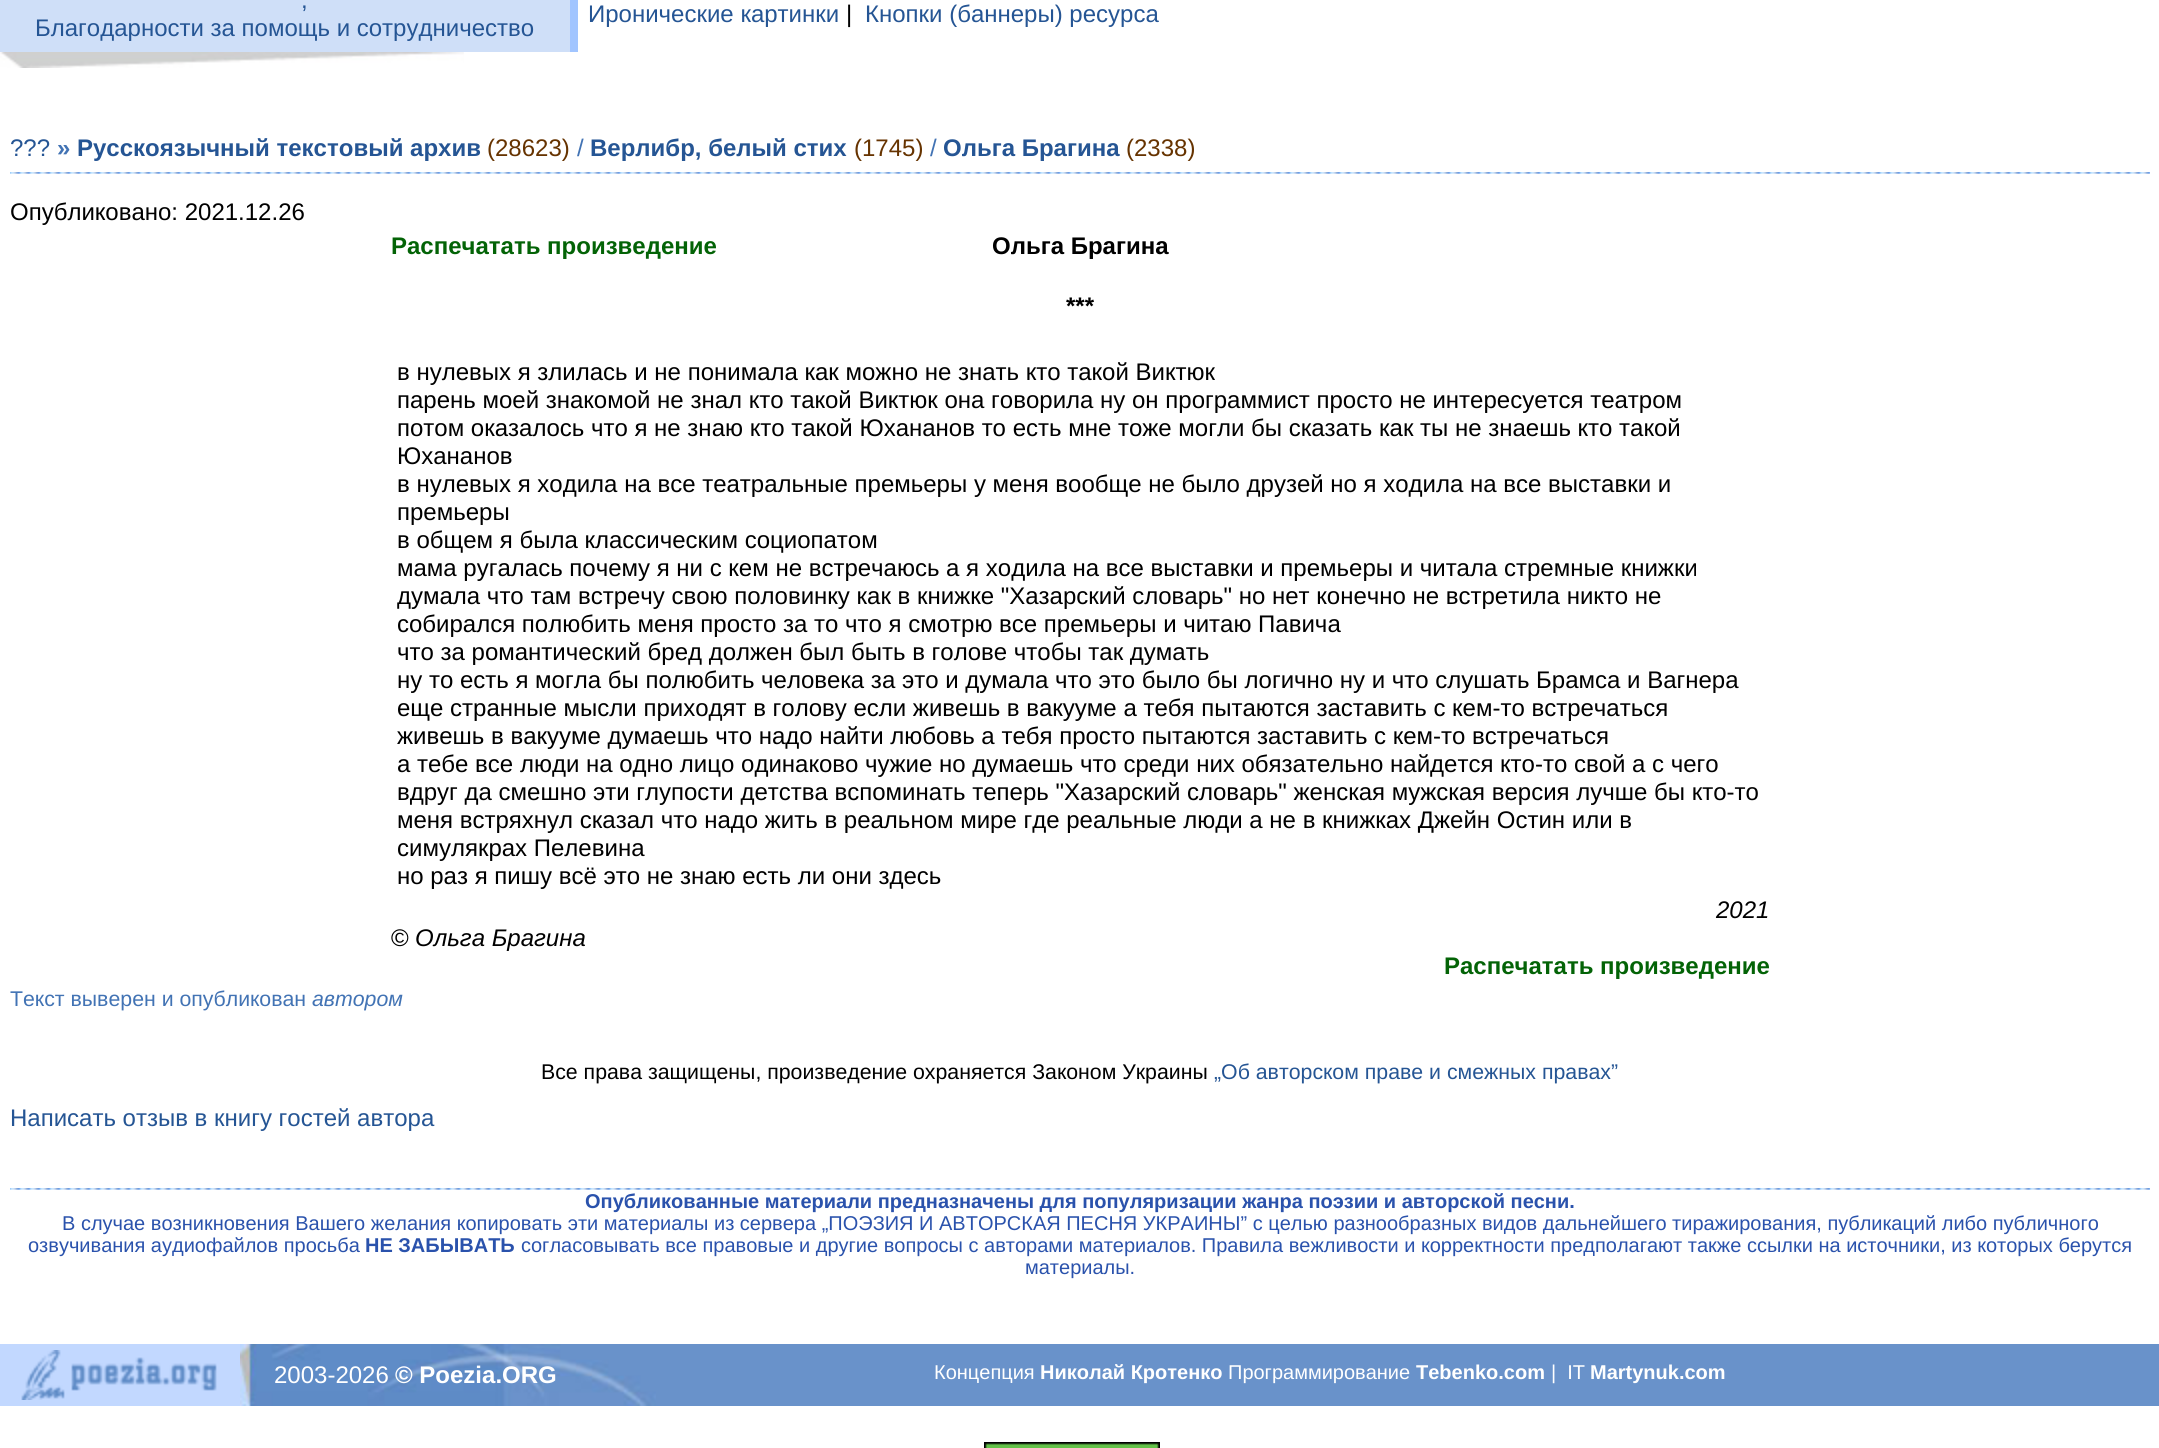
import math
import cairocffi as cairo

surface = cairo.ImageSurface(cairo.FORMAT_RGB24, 2159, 1448)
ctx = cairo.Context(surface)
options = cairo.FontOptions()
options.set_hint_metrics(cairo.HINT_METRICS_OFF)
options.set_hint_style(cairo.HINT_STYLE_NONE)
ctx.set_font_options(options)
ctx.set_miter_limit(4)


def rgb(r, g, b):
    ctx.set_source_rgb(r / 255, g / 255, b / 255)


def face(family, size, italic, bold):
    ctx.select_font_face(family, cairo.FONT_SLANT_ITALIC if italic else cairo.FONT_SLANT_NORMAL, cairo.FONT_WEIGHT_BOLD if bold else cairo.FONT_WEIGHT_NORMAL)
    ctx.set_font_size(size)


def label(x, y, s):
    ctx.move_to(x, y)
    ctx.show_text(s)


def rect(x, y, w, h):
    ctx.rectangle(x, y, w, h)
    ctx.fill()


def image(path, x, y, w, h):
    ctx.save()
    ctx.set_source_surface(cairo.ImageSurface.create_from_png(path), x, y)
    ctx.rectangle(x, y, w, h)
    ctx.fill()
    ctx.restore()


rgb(255, 255, 255)
ctx.paint()
rgb(207, 223, 248)
rect(0, 0, 570, 52)
face('Liberation Sans', 24, 0, 0)
rgb(37, 85, 148)
label(301, 8, ',')
label(35, 36, 'Благодарности за помощь и сотрудничество')
rgb(161, 197, 255)
rect(570, 0, 8, 52)
rgb(37, 85, 148)
label(588, 22, 'Иронические картинки')
rgb(0, 0, 0)
label(846, 22, '|')
rgb(37, 85, 148)
label(865, 22, 'Кнопки (баннеры) ресурса')
image('image0.png', 0, 52, 464, 16)
label(10, 156, '???')
face('Liberation Sans', 24, 0, 1)
rgb(66, 115, 180)
label(57, 156, '»')
rgb(37, 85, 148)
label(77, 156, 'Русскоязычный текстовый архив')
face('Liberation Sans', 24, 0, 0)
rgb(102, 51, 0)
label(487, 156, '(28623)')
rgb(66, 115, 180)
label(577, 156, '/')
face('Liberation Sans', 24, 0, 1)
rgb(37, 85, 148)
label(590, 156, 'Верлибр, белый стих')
face('Liberation Sans', 24, 0, 0)
rgb(102, 51, 0)
label(854, 156, '(1745)')
rgb(66, 115, 180)
label(930, 156, '/')
face('Liberation Sans', 24, 0, 1)
rgb(37, 85, 148)
label(943, 156, 'Ольга Брагина')
face('Liberation Sans', 24, 0, 0)
rgb(102, 51, 0)
label(1126, 156, '(2338)')
image('image1.png', 10, 172, 2140, 2)
rgb(0, 0, 0)
label(10, 220, 'Опубликовано: 2021.12.26')
face('Liberation Sans', 24, 0, 1)
rgb(3, 99, 6)
label(391, 254, 'Распечатать произведение')
rgb(0, 0, 0)
label(992, 254, 'Ольга Брагина')
label(1066, 314, '***')
face('Liberation Sans', 24, 0, 0)
label(397, 380, 'в нулевых я злилась и не понимала как можно не знать кто такой Виктюк')
label(397, 408, 'парень моей знакомой не знал кто такой Виктюк она говорила ну он программист просто не интересуется театром')
label(397, 436, 'потом оказалось что я не знаю кто такой Юхананов то есть мне тоже могли бы сказать как ты не знаешь кто такой')
label(397, 464, 'Юхананов')
label(397, 492, 'в нулевых я ходила на все театральные премьеры у меня вообще не было друзей но я ходила на все выставки и')
label(397, 520, 'премьеры')
label(397, 548, 'в общем я была классическим социопатом')
label(397, 576, 'мама ругалась почему я ни с кем не встречаюсь а я ходила на все выставки и премьеры и читала стремные книжки')
label(397, 604, 'думала что там встречу свою половинку как в книжке "Хазарский словарь" но нет конечно не встретила никто не')
label(397, 632, 'собирался полюбить меня просто за то что я смотрю все премьеры и читаю Павича')
label(397, 660, 'что за романтический бред должен был быть в голове чтобы так думать')
label(397, 688, 'ну то есть я могла бы полюбить человека за это и думала что это было бы логично ну и что слушать Брамса и Вагнера')
label(397, 716, 'еще странные мысли приходят в голову если живешь в вакууме а тебя пытаются заставить с кем-то встречаться')
label(397, 744, 'живешь в вакууме думаешь что надо найти любовь а тебя просто пытаются заставить с кем-то встречаться')
label(397, 772, 'а тебе все люди на одно лицо одинаково чужие но думаешь что среди них обязательно найдется кто-то свой а с чего')
label(397, 800, 'вдруг да смешно эти глупости детства вспоминать теперь "Хазарский словарь" женская мужская версия лучше бы кто-то')
label(397, 828, 'меня встряхнул сказал что надо жить в реальном мире где реальные люди а не в книжках Джейн Остин или в')
label(397, 856, 'симулякрах Пелевина')
label(397, 884, 'но раз я пишу всё это не знаю есть ли они здесь')
face('Liberation Sans', 24, 1, 0)
label(1716, 918, '2021')
face('Liberation Sans', 24, 0, 0)
label(391, 946, '©')
face('Liberation Sans', 24, 1, 0)
label(415, 946, 'Ольга Брагина')
face('Liberation Sans', 24, 0, 1)
rgb(3, 99, 6)
label(1444, 974, 'Распечатать произведение')
face('Liberation Sans', 21.3, 0, 0)
rgb(66, 115, 180)
label(10, 1006, 'Текст выверен и опубликован')
face('Liberation Sans', 21.3, 1, 0)
label(312, 1006, 'автором')
face('Liberation Sans', 21.3, 0, 0)
rgb(0, 0, 0)
label(541, 1079, 'Все права защищены, произведение охраняется Законом Украины')
rgb(37, 85, 148)
label(1214, 1079, '„Об авторском праве и смежных правах”')
face('Liberation Sans', 24, 0, 0)
label(10, 1126, 'Написать отзыв в книгу гостей автора')
image('image1.png', 10, 1188, 2140, 2)
face('Liberation Sans', 20, 0, 1)
rgb(42, 82, 172)
label(585, 1208, 'Опубликованные материали предназначены для популяризации жанра поэзии и авторской песни.')
face('Liberation Sans', 20, 0, 0)
label(62, 1230, 'В случае возникновения Вашего желания копировать эти материалы из сервера „ПОЭЗИЯ И АВТОРСКАЯ ПЕСНЯ УКРАИНЫ” с целью разнообразных видов дальнейшего тиражирования, публикаций либо публичного')
label(28, 1252, 'озвучивания аудиофайлов просьба')
face('Liberation Sans', 20, 0, 1)
label(365, 1252, 'НЕ ЗАБЫВАТЬ')
face('Liberation Sans', 20, 0, 0)
label(521, 1252, 'согласовывать все правовые и другие вопросы с авторами материалов. Правила вежливости и корректности предполагают также ссылки на источники, из которых берутся')
label(1025, 1274, 'материалы.')
rgb(194, 216, 255)
rect(0, 1344, 240, 62)
image('image2.png', 21, 1350, 196, 50)
rgb(105, 146, 202)
rect(656, 1344, 1503, 62)
image('image3.png', 240, 1344, 416, 62)
face('Liberation Sans', 24, 0, 0)
rgb(255, 255, 255)
label(274, 1383, '2003-2026')
face('Liberation Sans', 24, 0, 1)
label(395, 1383, '© Poezia.ORG')
face('Liberation Sans', 20, 0, 0)
label(934, 1379, 'Концепция')
face('Liberation Sans', 20, 0, 1)
label(1040, 1379, 'Николай Кротенко')
face('Liberation Sans', 20, 0, 0)
label(1228, 1379, 'Программирование')
face('Liberation Sans', 20, 0, 1)
label(1416, 1379, 'Tebenko.com')
face('Liberation Sans', 20, 0, 0)
label(1551, 1379, '|  IT')
face('Liberation Sans', 20, 0, 1)
label(1590, 1379, 'Martynuk.com')
image('image4.png', 984, 1442, 176, 6)
surface.write_to_png('render.png')
